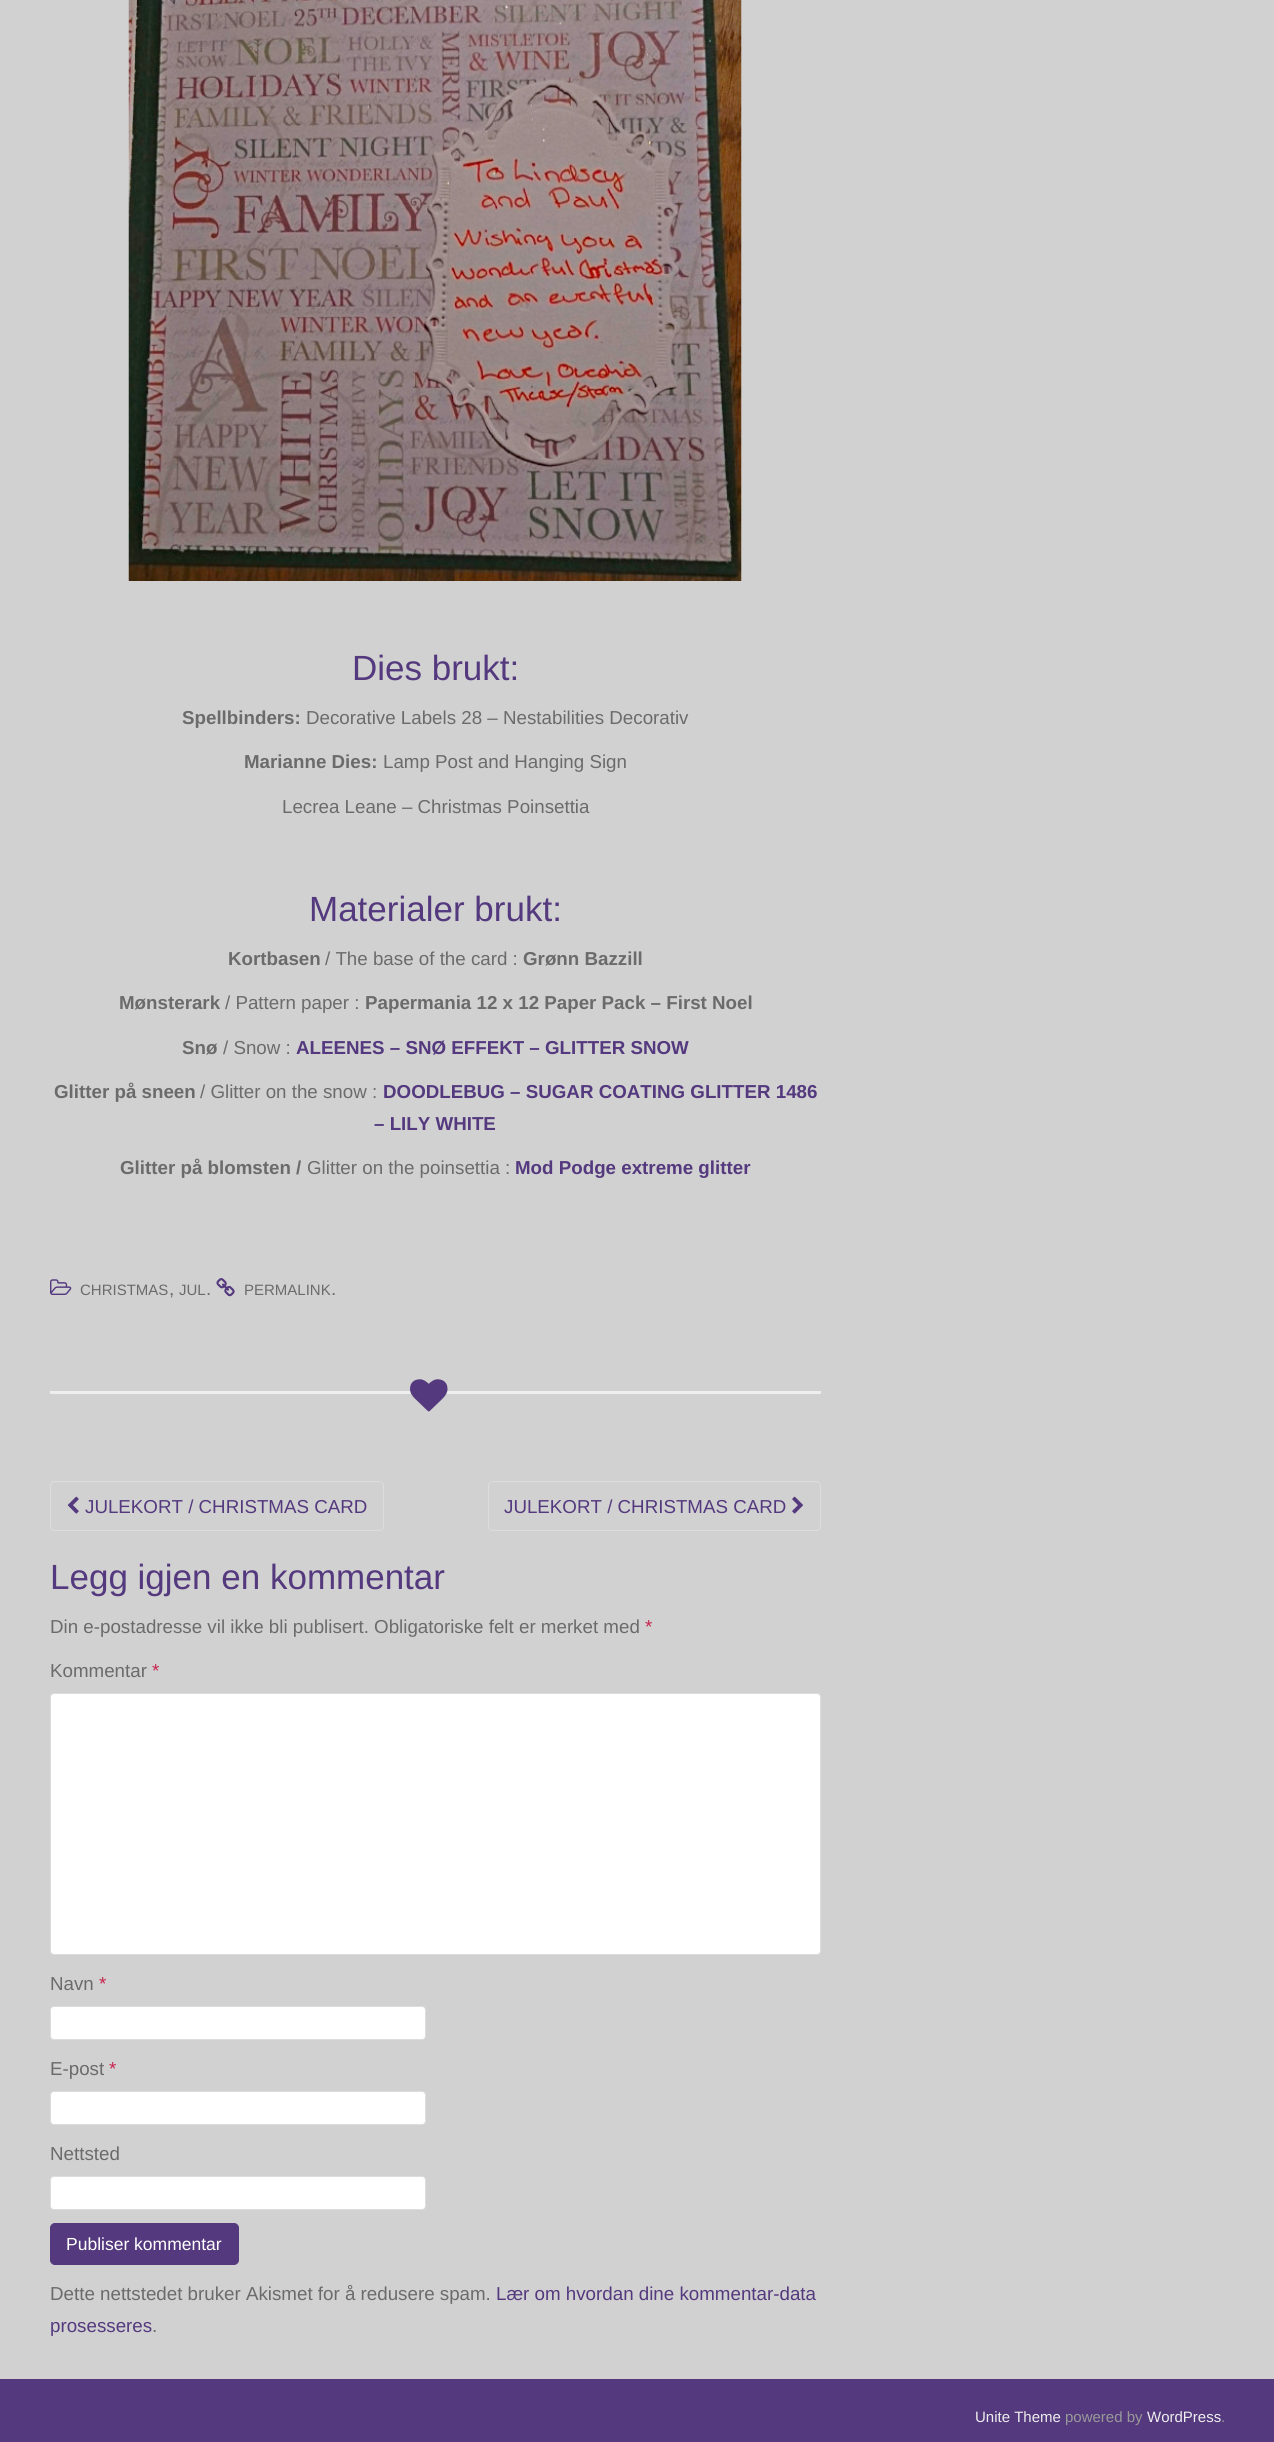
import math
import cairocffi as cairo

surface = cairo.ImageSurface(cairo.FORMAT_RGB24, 1274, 2442)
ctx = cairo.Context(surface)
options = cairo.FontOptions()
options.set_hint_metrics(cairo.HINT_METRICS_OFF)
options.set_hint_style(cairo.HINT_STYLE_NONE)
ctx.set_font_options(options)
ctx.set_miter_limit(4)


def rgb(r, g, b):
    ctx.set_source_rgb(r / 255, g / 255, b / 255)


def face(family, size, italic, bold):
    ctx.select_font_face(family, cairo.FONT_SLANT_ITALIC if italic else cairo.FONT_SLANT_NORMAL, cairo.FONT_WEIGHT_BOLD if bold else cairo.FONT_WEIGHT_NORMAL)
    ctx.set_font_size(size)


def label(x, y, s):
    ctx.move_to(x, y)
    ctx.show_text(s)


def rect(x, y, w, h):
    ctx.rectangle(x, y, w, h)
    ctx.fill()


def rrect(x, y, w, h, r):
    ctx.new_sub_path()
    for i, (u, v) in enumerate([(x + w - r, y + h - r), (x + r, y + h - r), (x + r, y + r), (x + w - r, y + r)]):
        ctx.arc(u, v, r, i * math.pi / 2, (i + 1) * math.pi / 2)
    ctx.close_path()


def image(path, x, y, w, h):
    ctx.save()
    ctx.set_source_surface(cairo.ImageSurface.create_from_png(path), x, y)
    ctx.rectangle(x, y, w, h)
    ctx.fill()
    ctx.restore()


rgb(209, 209, 209)
ctx.paint()
image('image0.png', 128, 0, 614, 581)
face('Liberation Sans', 35, 0, 0)
rgb(84, 57, 126)
label(352, 680, 'Dies brukt:')
face('Liberation Sans', 18.75, 0, 1)
rgb(107, 107, 107)
label(182, 724, 'Spellbinders:')
face('Liberation Sans', 18.75, 0, 0)
label(306, 724, 'Decorative Labels 28 – Nestabilities Decorativ')
face('Liberation Sans', 18.75, 0, 1)
label(244, 768, 'Marianne Dies:')
face('Liberation Sans', 18.75, 0, 0)
label(383, 768, 'Lamp Post and Hanging Sign')
label(282, 813, 'Lecrea Leane – Christmas Poinsettia')
face('Liberation Sans', 35, 0, 0)
rgb(84, 57, 126)
label(309, 921, 'Materialer brukt:')
face('Liberation Sans', 18.75, 0, 1)
rgb(107, 107, 107)
label(228, 965, 'Kortbasen')
face('Liberation Sans', 18.75, 0, 0)
label(325, 965, '/ The base of the card :')
face('Liberation Sans', 18.75, 0, 1)
label(523, 965, 'Grønn Bazzill')
label(119, 1009, 'Mønsterark')
face('Liberation Sans', 18.75, 0, 0)
label(225, 1009, '/ Pattern paper :')
face('Liberation Sans', 18.75, 0, 1)
label(365, 1009, 'Papermania 12 x 12 Paper Pack – First Noel')
label(182, 1054, 'Snø')
face('Liberation Sans', 18.75, 0, 0)
label(223, 1054, '/ Snow :')
face('Liberation Sans', 18.75, 0, 1)
rgb(84, 57, 126)
label(296, 1054, 'ALEENES – SNØ EFFEKT – GLITTER SNOW')
rgb(107, 107, 107)
label(54, 1098, 'Glitter på sneen')
face('Liberation Sans', 18.75, 0, 0)
label(200, 1098, '/ Glitter on the snow :')
face('Liberation Sans', 18.75, 0, 1)
rgb(84, 57, 126)
label(383, 1098, 'DOODLEBUG – SUGAR COATING GLITTER 1486')
label(374, 1130, '– LILY WHITE')
rgb(107, 107, 107)
label(120, 1174, 'Glitter på blomsten /')
face('Liberation Sans', 18.75, 0, 0)
label(307, 1174, 'Glitter on the poinsettia :')
face('Liberation Sans', 18.75, 0, 1)
rgb(84, 57, 126)
label(515, 1174, 'Mod Podge extreme glitter')
image('image1.png', 50, 1279, 22, 16)
face('Liberation Sans', 15, 0, 0)
rgb(107, 107, 107)
label(80, 1295, 'CHRISTMAS')
face('Liberation Sans', 18.75, 0, 0)
label(169, 1295, ',')
face('Liberation Sans', 15, 0, 0)
label(179, 1295, 'JUL')
face('Liberation Sans', 18.75, 0, 0)
label(206, 1295, '.')
image('image2.png', 216, 1278, 19, 19)
face('Liberation Sans', 15, 0, 0)
label(244, 1295, 'PERMALINK')
face('Liberation Sans', 18.75, 0, 0)
label(331, 1295, '.')
rgb(238, 238, 238)
rect(50, 1391, 771, 3)
image('image3.png', 410, 1379, 38, 33)
rrect(50.5, 1481.5, 333, 49, 4.5)
rgb(221, 221, 221)
ctx.set_line_width(1)
ctx.stroke()
image('image4.png', 67, 1496, 12, 18)
rgb(84, 57, 126)
label(85, 1513, 'JULEKORT / CHRISTMAS CARD')
rrect(488.5, 1481.5, 332, 49, 4.5)
rgb(221, 221, 221)
ctx.stroke()
rgb(84, 57, 126)
label(504, 1513, 'JULEKORT / CHRISTMAS CARD')
image('image5.png', 792, 1496, 11, 18)
face('Liberation Sans', 35, 0, 0)
label(50, 1589, 'Legg igjen en kommentar')
face('Liberation Sans', 18.75, 0, 0)
rgb(107, 107, 107)
label(50, 1633, 'Din e-postadresse vil ikke bli publisert. Obligatoriske felt er merket med')
rgb(199, 37, 78)
label(645, 1633, '*')
rgb(107, 107, 107)
label(50, 1677, 'Kommentar')
rgb(199, 37, 78)
label(152, 1677, '*')
rgb(255, 255, 255)
rrect(50.5, 1693.5, 770, 261, 3.5)
ctx.fill_preserve()
rgb(221, 221, 221)
ctx.stroke()
rgb(107, 107, 107)
label(50, 1990, 'Navn')
rgb(199, 37, 78)
label(99, 1990, '*')
rgb(255, 255, 255)
rrect(50.5, 2006.5, 375, 33, 3.5)
ctx.fill_preserve()
rgb(221, 221, 221)
ctx.stroke()
rgb(107, 107, 107)
label(50, 2075, 'E-post')
rgb(199, 37, 78)
label(109, 2075, '*')
rgb(255, 255, 255)
rrect(50.5, 2091.5, 375, 33, 3.5)
ctx.fill_preserve()
rgb(221, 221, 221)
ctx.stroke()
rgb(107, 107, 107)
label(50, 2160, 'Nettsted')
rgb(255, 255, 255)
rrect(50.5, 2176.5, 375, 33, 3.5)
ctx.fill_preserve()
rgb(221, 221, 221)
ctx.stroke()
rgb(84, 57, 126)
rrect(50.5, 2223.5, 188, 41, 4.5)
ctx.fill_preserve()
ctx.stroke()
face('Liberation Sans', 17.5, 0, 0)
rgb(255, 255, 255)
label(66, 2250, 'Publiser kommentar')
face('Liberation Sans', 18.75, 0, 0)
rgb(107, 107, 107)
label(50, 2300, 'Dette nettstedet bruker Akismet for å redusere spam.')
rgb(84, 57, 126)
label(496, 2300, 'Lær om hvordan dine kommentar-data')
label(50, 2332, 'prosesseres')
rgb(107, 107, 107)
label(152, 2332, '.')
rgb(84, 57, 126)
rect(0, 2379, 1274, 63)
face('Liberation Sans', 15, 0, 0)
rgb(238, 238, 238)
label(975, 2422, 'Unite Theme')
rgb(153, 153, 153)
label(1065, 2422, 'powered by')
rgb(238, 238, 238)
label(1147, 2422, 'WordPress')
rgb(153, 153, 153)
label(1221, 2422, '.')
surface.write_to_png('render.png')
